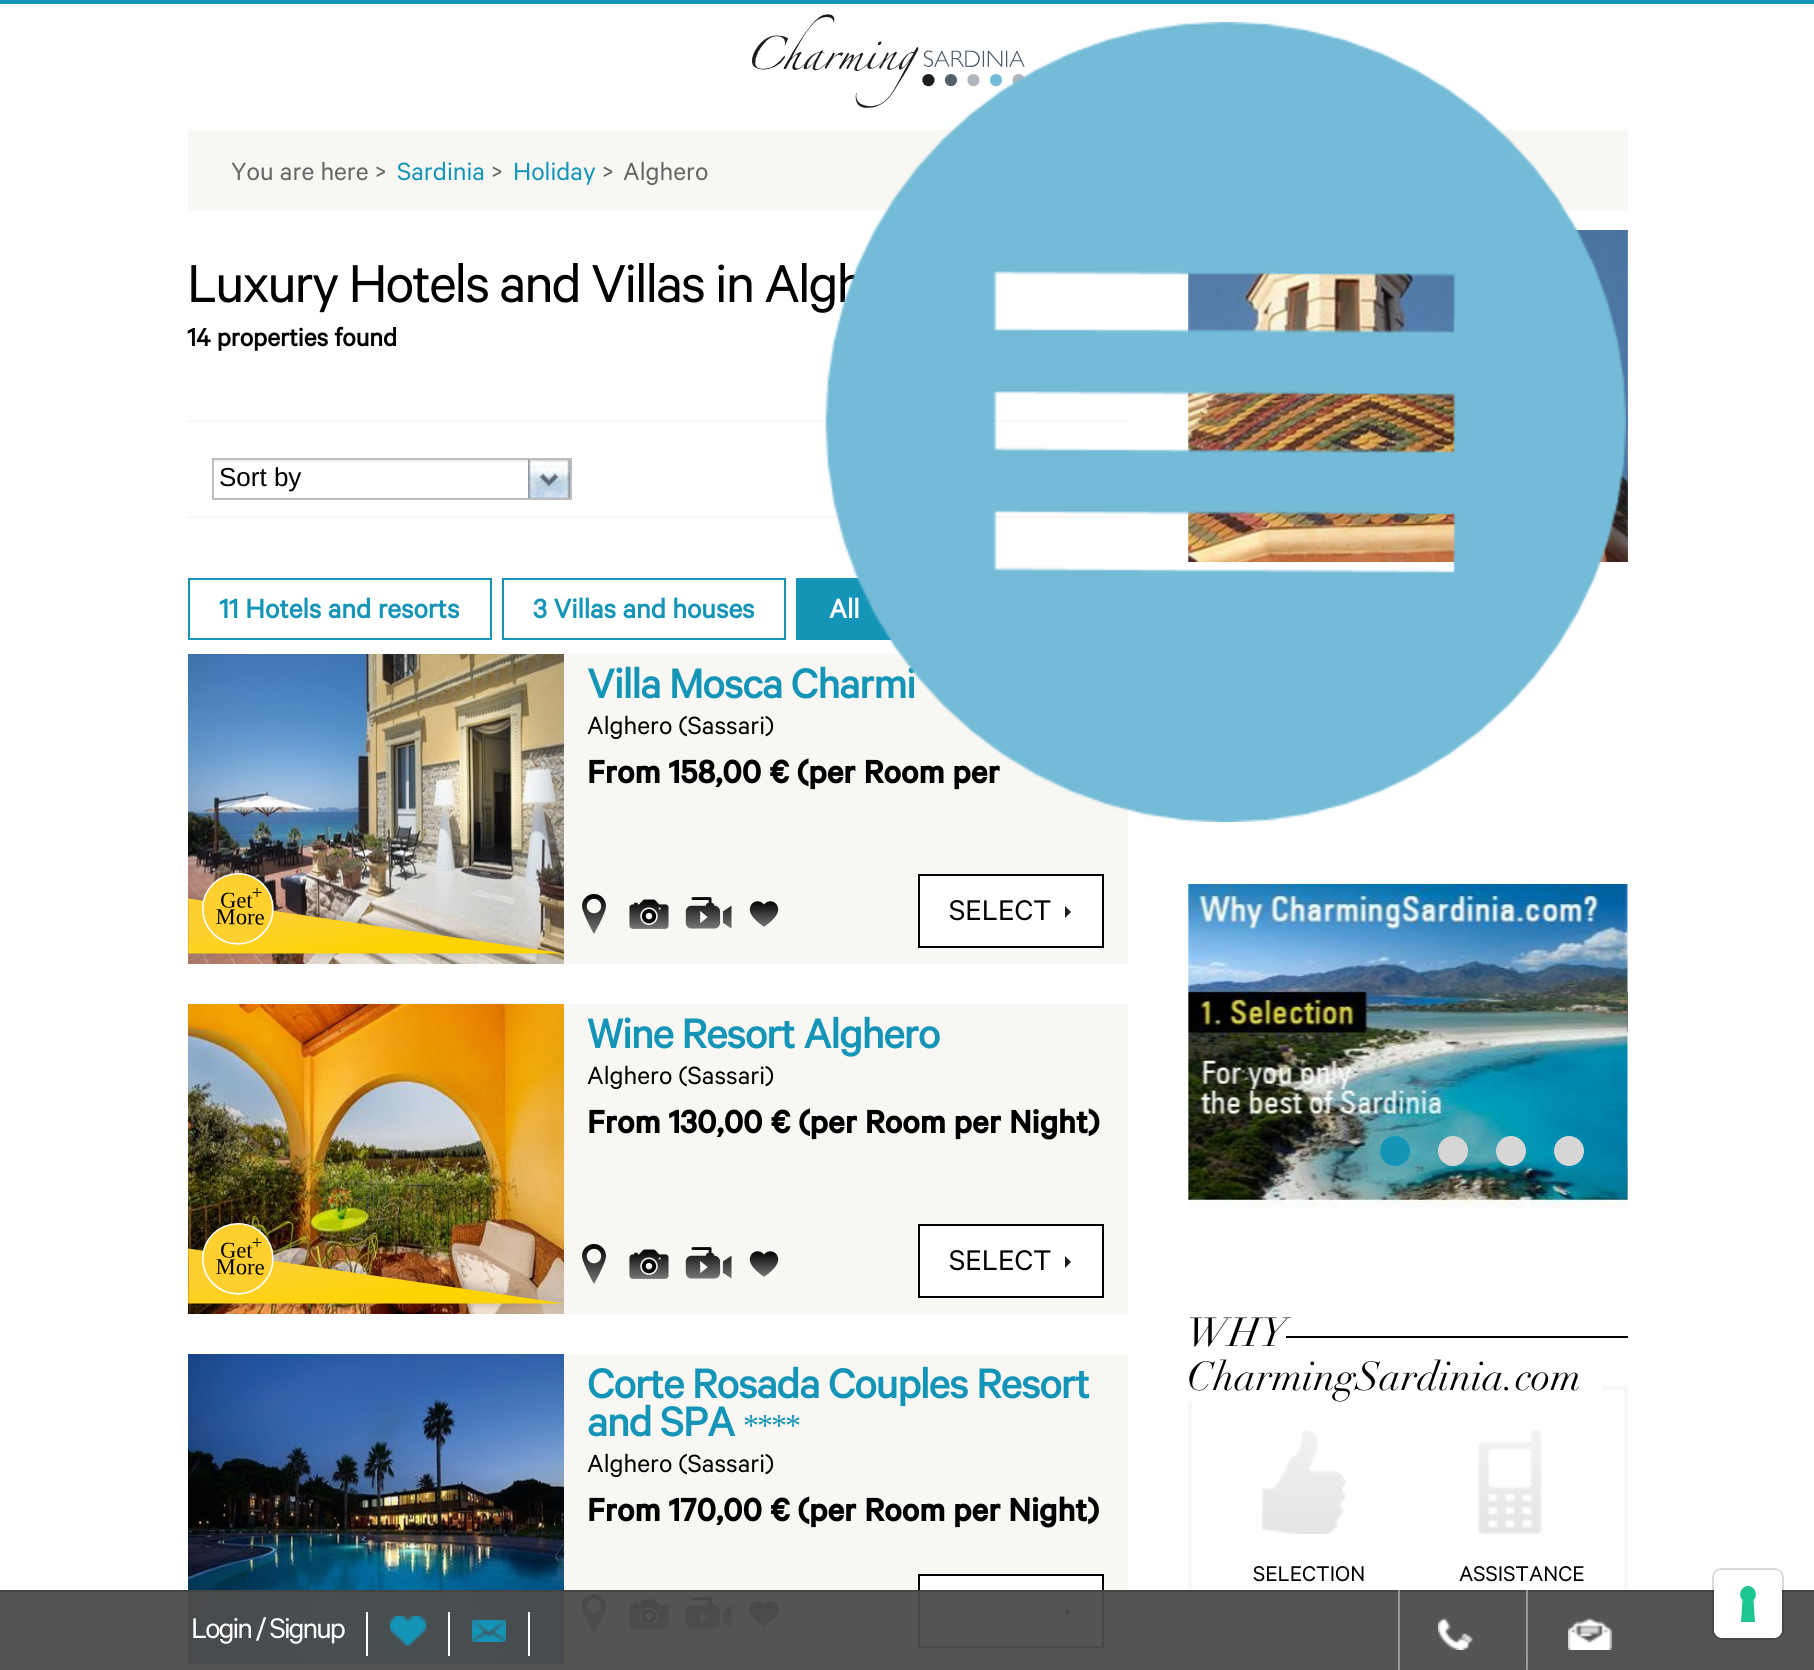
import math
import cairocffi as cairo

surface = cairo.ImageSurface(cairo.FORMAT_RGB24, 1814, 1670)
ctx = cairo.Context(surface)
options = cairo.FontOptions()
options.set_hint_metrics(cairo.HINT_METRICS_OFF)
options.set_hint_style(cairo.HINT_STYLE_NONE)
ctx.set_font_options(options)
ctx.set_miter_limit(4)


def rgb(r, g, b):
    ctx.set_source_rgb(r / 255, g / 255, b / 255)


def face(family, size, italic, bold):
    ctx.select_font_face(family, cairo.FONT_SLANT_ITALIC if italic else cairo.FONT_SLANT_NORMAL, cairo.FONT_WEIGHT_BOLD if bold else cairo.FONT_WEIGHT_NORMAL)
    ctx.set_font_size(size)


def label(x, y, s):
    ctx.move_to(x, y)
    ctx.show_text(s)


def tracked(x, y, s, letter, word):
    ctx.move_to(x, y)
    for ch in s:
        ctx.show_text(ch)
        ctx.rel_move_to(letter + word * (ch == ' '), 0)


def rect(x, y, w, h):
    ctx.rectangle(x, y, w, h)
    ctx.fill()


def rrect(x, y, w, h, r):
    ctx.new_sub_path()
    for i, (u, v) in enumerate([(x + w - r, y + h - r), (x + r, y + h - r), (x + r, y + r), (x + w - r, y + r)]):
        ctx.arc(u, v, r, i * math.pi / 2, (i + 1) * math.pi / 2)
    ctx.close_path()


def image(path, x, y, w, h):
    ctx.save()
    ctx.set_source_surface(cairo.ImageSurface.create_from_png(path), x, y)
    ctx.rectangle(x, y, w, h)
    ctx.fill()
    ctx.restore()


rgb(255, 255, 255)
ctx.paint()
rgb(20, 149, 183)
rect(0, 0, 1814, 4)
image('image0.png', 752, 14, 273, 94)
rgb(248, 247, 243)
rect(188, 130, 1440, 80)
face('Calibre', 60, 0, 0)
rgb(0, 0, 0)
tracked(187, 302, 'Luxury Hotels and Villas in Algh', -2, 0)
rgb(248, 247, 243)
rect(188, 420, 940, 2)
rect(188, 516, 940, 2)
rgb(20, 149, 183)
rect(796, 578, 96, 62)
face('Calibre', 30, 0, 1)
rgb(255, 255, 255)
label(829, 618, 'All')
rgb(248, 247, 243)
rect(564, 654, 564, 310)
face('Calibre Medium', 48, 0, 0)
rgb(20, 149, 183)
tracked(587, 698, 'Villa Mosca Charmi', -2, 0)
face('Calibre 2', 36, 0, 1)
rgb(0, 0, 0)
label(587, 783, 'From 158,00 € (per Room per')
image('image12.png', 1188, 230, 440, 332)
image('image1.png', 825, 22, 801, 800)
face('Calibre', 28, 0, 0)
rgb(102, 102, 102)
label(231, 180, 'You are here >')
rgb(20, 149, 183)
label(397, 180, 'Sardinia')
rgb(102, 102, 102)
label(491, 180, '>')
rgb(20, 149, 183)
label(513, 180, 'Holiday')
rgb(102, 102, 102)
label(602, 180, '>')
label(623, 180, 'Alghero')
face('Calibre', 28, 0, 1)
rgb(0, 0, 0)
label(187, 346, '14 properties found')
image('image2.png', 528, 460, 42, 38)
ctx.set_source_rgba(0, 0, 0, 0.07)
rect(214, 460, 356, 2)
ctx.rectangle(213, 459, 358, 40)
rgb(189, 189, 189)
ctx.stroke()
face('Liberation Sans', 26, 0, 0)
rgb(0, 0, 0)
label(219, 486, 'Sort by')
ctx.rectangle(189, 579, 302, 60)
rgb(20, 149, 183)
ctx.stroke()
face('Calibre', 30, 0, 1)
label(219, 618, '11 Hotels and resorts')
ctx.rectangle(503, 579, 282, 60)
ctx.stroke()
label(533, 618, '3 Villas and houses')
image('image3.png', 188, 654, 376, 310)
image('image4.png', 188, 873, 376, 86)
face('Calibre', 28, 0, 0)
rgb(0, 0, 0)
label(587, 734, 'Alghero (Sassari)')
image('image5.png', 582, 894, 24, 40)
image('image6.png', 629, 899, 40, 30)
image('image7.png', 685, 897, 47, 32)
image('image8.png', 749, 901, 30, 26)
rgb(255, 255, 255)
ctx.rectangle(919, 875, 184, 72)
ctx.fill_preserve()
rgb(0, 0, 0)
ctx.stroke()
face('Calibre', 32, 0, 0)
label(949, 920, 'SELECT')
rgb(29, 29, 27)
ctx.new_path()
ctx.move_to(1065, 918)
ctx.line_to(1065, 906)
ctx.line_to(1071, 912)
ctx.close_path()
ctx.fill()
rgb(248, 247, 243)
rect(564, 1004, 564, 310)
image('image9.png', 188, 1004, 376, 310)
image('image10.png', 188, 1223, 376, 86)
face('Calibre Medium', 48, 0, 0)
rgb(20, 149, 183)
tracked(587, 1048, 'Wine Resort Alghero', -2, 0)
face('Calibre', 28, 0, 0)
rgb(0, 0, 0)
label(587, 1084, 'Alghero (Sassari)')
face('Calibre 2', 36, 0, 1)
label(587, 1133, 'From 130,00 € (per Room per Night)')
image('image5.png', 582, 1244, 24, 40)
image('image6.png', 629, 1249, 40, 30)
image('image7.png', 685, 1247, 47, 32)
image('image8.png', 749, 1251, 30, 26)
rgb(255, 255, 255)
ctx.rectangle(919, 1225, 184, 72)
ctx.fill_preserve()
rgb(0, 0, 0)
ctx.stroke()
face('Calibre', 32, 0, 0)
label(949, 1270, 'SELECT')
rgb(29, 29, 27)
ctx.new_path()
ctx.move_to(1065, 1268)
ctx.line_to(1065, 1256)
ctx.line_to(1071, 1262)
ctx.close_path()
ctx.fill()
rgb(248, 247, 243)
rect(564, 1354, 564, 310)
image('image11.png', 188, 1354, 376, 310)
face('Calibre Medium', 48, 0, 0)
rgb(20, 149, 183)
tracked(587, 1398, 'Corte Rosada Couples Resort', -2, 0)
tracked(587, 1436, 'and SPA', -2, 0)
face('Liberation Serif', 32, 0, 0)
tracked(743, 1436, '****', -2, 0)
face('Calibre', 28, 0, 0)
rgb(0, 0, 0)
label(587, 1472, 'Alghero (Sassari)')
face('Calibre 2', 36, 0, 1)
label(587, 1521, 'From 170,00 € (per Room per Night)')
image('image5.png', 582, 1594, 24, 40)
image('image6.png', 629, 1599, 40, 30)
image('image7.png', 685, 1597, 47, 32)
image('image8.png', 749, 1601, 30, 26)
rgb(255, 255, 255)
ctx.rectangle(919, 1575, 184, 72)
ctx.fill_preserve()
rgb(0, 0, 0)
ctx.stroke()
rgb(29, 29, 27)
ctx.new_path()
ctx.move_to(1065, 1618)
ctx.line_to(1065, 1606)
ctx.line_to(1071, 1612)
ctx.close_path()
ctx.fill()
image('image13.png', 1627, 270, 1, 292)
image('image14.png', 1188, 884, 440, 324)
image('image15.png', 1627, 884, 1, 317)
rgb(20, 149, 183)
ctx.arc(1395, 1151, 15, 0, 2 * math.pi)
ctx.fill()
rgb(214, 214, 214)
ctx.arc(1453, 1151, 15, 0, 2 * math.pi)
ctx.fill()
ctx.arc(1511, 1151, 15, 0, 2 * math.pi)
ctx.fill()
ctx.arc(1569, 1151, 15, 0, 2 * math.pi)
ctx.fill()
rgb(0, 0, 0)
rect(1286, 1336, 342, 2)
face('Didot', 40, 1, 0)
label(1187, 1346, 'WHY')
ctx.rectangle(1190, 1388, 436, 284)
rgb(248, 247, 243)
ctx.set_line_width(4)
ctx.stroke()
rgb(255, 255, 255)
rect(1188, 1386, 414, 16)
rgb(0, 0, 0)
label(1187, 1390, 'CharmingSardinia.com')
image('image16.png', 1262, 1430, 84, 104)
face('Calibre', 24, 0, 0)
label(1253, 1581, 'SELECTION')
image('image17.png', 1281, 1652, 45, 18)
image('image18.png', 1478, 1430, 64, 104)
label(1459, 1581, 'ASSISTANCE')
image('image19.png', 1481, 1652, 57, 18)
ctx.set_source_rgba(0.298, 0.298, 0.298, 0.95)
rect(0, 1592, 1814, 78)
rgb(68, 68, 68)
rect(0, 1590, 1814, 2)
rgb(255, 255, 255)
rect(366, 1612, 2, 44)
face('Calibre', 32, 0, 0)
tracked(191, 1638, 'Login / Signup', -2, 0)
rect(448, 1612, 2, 44)
image('image20.png', 390, 1616, 36, 30)
rect(528, 1612, 2, 44)
image('image21.png', 472, 1620, 34, 22)
ctx.set_source_rgba(1, 1, 1, 0.4)
rect(1526, 1590, 2, 80)
rect(1398, 1590, 2, 80)
image('image22.png', 1438, 1618, 35, 32)
image('image23.png', 1568, 1618, 44, 32)
rrect(1713, 1569, 70, 70, 9)
ctx.set_source_rgba(0, 0, 0, 0.15)
ctx.set_line_width(2)
ctx.stroke()
rgb(255, 255, 255)
rrect(1714, 1570, 68, 68, 8)
ctx.fill()
rgb(28, 198, 145)
ctx.set_fill_rule(cairo.FILL_RULE_EVEN_ODD)
ctx.new_path()
ctx.move_to(1748, 1586)
ctx.curve_to(1755, 1586, 1758.5, 1595.5, 1753.5, 1600)
ctx.line_to(1755, 1622)
ctx.line_to(1741, 1622)
ctx.line_to(1742.5, 1600)
ctx.curve_to(1737.5, 1595.5, 1741, 1586, 1748, 1586)
ctx.close_path()
ctx.fill()
surface.write_to_png('render.png')
